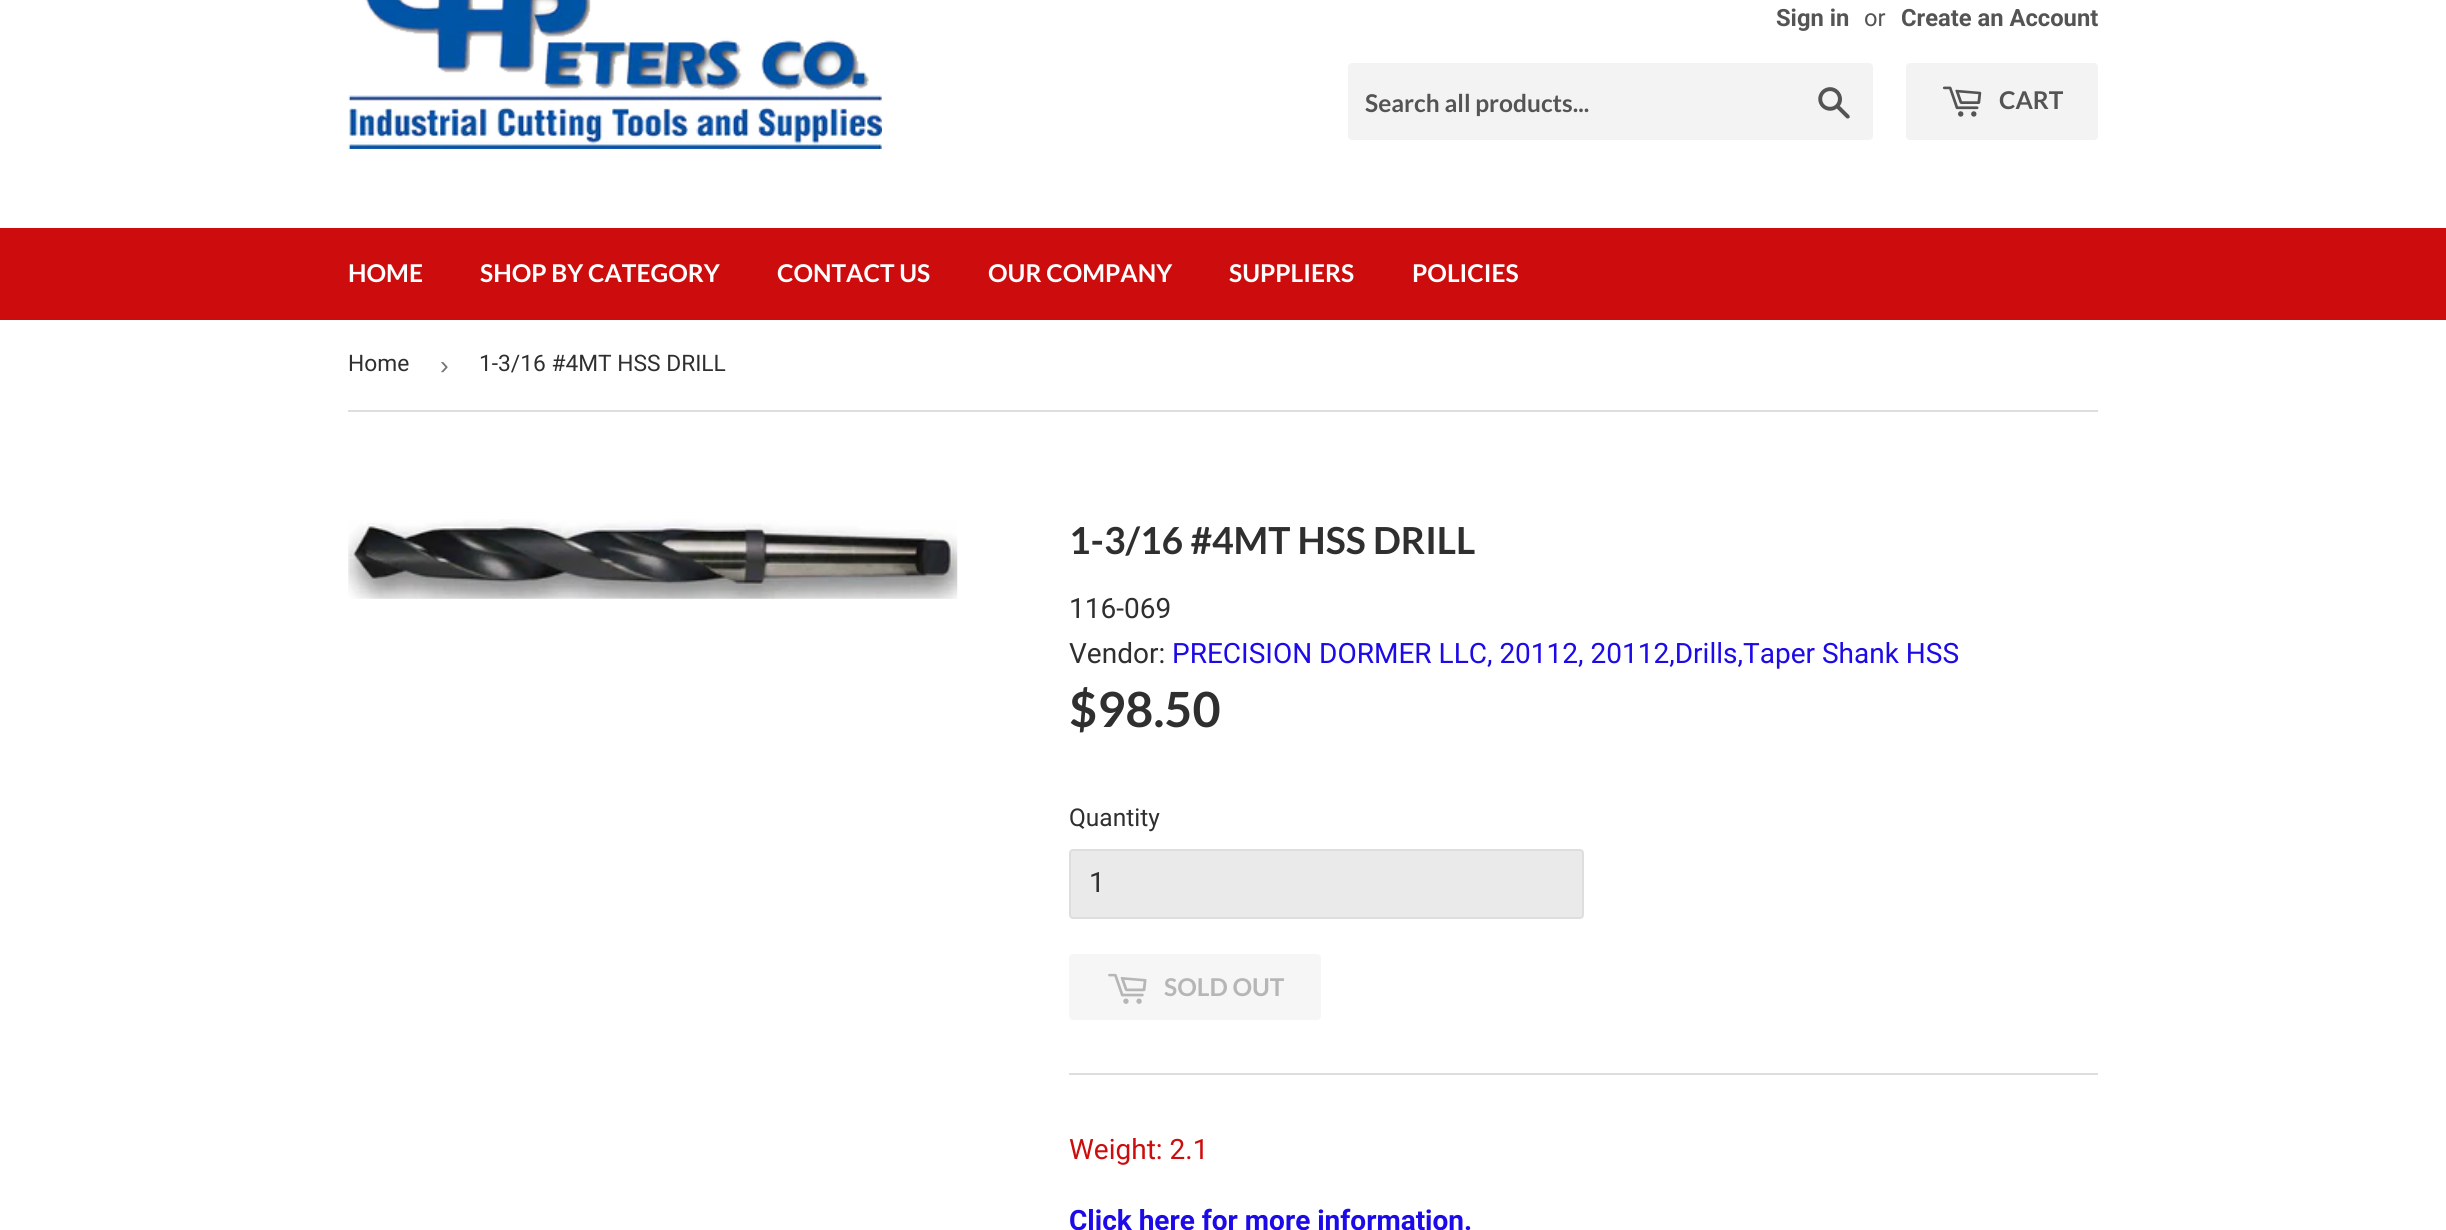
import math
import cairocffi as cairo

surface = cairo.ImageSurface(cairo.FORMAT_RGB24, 2446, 1230)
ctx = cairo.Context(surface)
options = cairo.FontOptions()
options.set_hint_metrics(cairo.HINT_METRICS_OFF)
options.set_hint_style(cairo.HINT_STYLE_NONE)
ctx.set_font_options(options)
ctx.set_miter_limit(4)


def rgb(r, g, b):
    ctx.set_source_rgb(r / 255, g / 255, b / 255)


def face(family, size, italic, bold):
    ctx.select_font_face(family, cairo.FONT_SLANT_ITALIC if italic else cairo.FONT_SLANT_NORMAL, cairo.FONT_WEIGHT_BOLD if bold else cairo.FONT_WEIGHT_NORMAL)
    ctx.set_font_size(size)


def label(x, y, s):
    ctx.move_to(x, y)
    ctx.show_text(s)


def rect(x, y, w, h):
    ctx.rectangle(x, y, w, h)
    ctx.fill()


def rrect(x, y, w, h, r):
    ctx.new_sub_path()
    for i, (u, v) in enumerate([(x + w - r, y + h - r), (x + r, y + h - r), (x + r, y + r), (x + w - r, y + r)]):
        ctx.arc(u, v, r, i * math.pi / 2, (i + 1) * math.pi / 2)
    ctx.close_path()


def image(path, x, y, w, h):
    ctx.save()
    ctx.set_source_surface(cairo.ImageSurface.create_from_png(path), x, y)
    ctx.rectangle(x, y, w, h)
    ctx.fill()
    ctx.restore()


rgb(255, 255, 255)
ctx.paint()
image('image0.png', 348, 0, 534, 149)
face('Roboto', 23.75, 0, 1)
rgb(84, 84, 84)
label(1776, 26, 'Sign in')
face('Roboto', 23.75, 0, 0)
label(1864, 26, 'or')
face('Roboto', 23.75, 0, 1)
label(1901, 26, 'Create an Account')
rgb(243, 243, 243)
rrect(1348, 63, 525, 77, 4)
ctx.fill()
face('Lato', 24.5, 0, 1)
rgb(84, 84, 84)
label(1365, 112, 'Search all products...')
image('image1.png', 1818, 87, 32, 32)
rgb(243, 243, 243)
rrect(1906, 63, 192, 77, 4)
ctx.fill()
image('image2.png', 1942, 86, 40, 31)
rgb(84, 84, 84)
label(1999, 109, 'CART')
rgb(205, 13, 13)
rect(0, 228, 2446, 92)
rgb(255, 255, 255)
label(348, 282, 'HOME')
label(480, 282, 'SHOP BY CATEGORY')
label(777, 282, 'CONTACT US')
label(988, 282, 'OUR COMPANY')
label(1229, 282, 'SUPPLIERS')
label(1412, 282, 'POLICIES')
rgb(222, 222, 222)
rect(348, 410, 1750, 2)
face('Roboto', 22.75, 0, 0)
rgb(47, 47, 47)
label(348, 371, 'Home')
face('Liberation Sans', 26, 0, 0)
rgb(118, 118, 118)
label(440, 374, '›')
face('Roboto', 22.75, 0, 0)
rgb(47, 47, 47)
label(479, 371, '1-3/16 #4MT HSS DRILL')
image('image3.png', 348, 519, 610, 80)
face('Lato', 37.25, 0, 1)
label(1069, 554, '1-3/16 #4MT HSS DRILL')
face('Roboto', 28, 0, 0)
label(1069, 618, '116-069')
label(1069, 663, 'Vendor:')
rgb(29, 10, 232)
label(1172, 663, 'PRECISION DORMER LLC, 20112, 20112,Drills,Taper Shank HSS')
face('Lato', 48.5, 0, 1)
rgb(47, 47, 47)
label(1069, 727, '$98.50')
face('Roboto', 24.5, 0, 0)
label(1069, 826, 'Quantity')
rgb(234, 234, 234)
rrect(1070, 850, 513, 68, 3)
ctx.fill_preserve()
rgb(222, 222, 222)
ctx.stroke()
face('Roboto', 28, 0, 0)
rgb(47, 47, 47)
label(1089, 892, '1')
rgb(246, 246, 246)
rrect(1069, 954, 252, 66, 4)
ctx.fill()
image('image4.png', 1108, 973, 39, 31)
face('Lato', 24.5, 0, 1)
rgb(182, 182, 182)
label(1164, 996, 'SOLD OUT')
rgb(222, 222, 222)
rect(1069, 1073, 1029, 2)
face('Roboto', 28, 0, 0)
rgb(205, 13, 13)
label(1069, 1159, 'Weight: 2.1')
face('Roboto', 28, 0, 1)
rgb(29, 10, 232)
label(1069, 1230, 'Click here for more information.')
surface.write_to_png('render.png')
